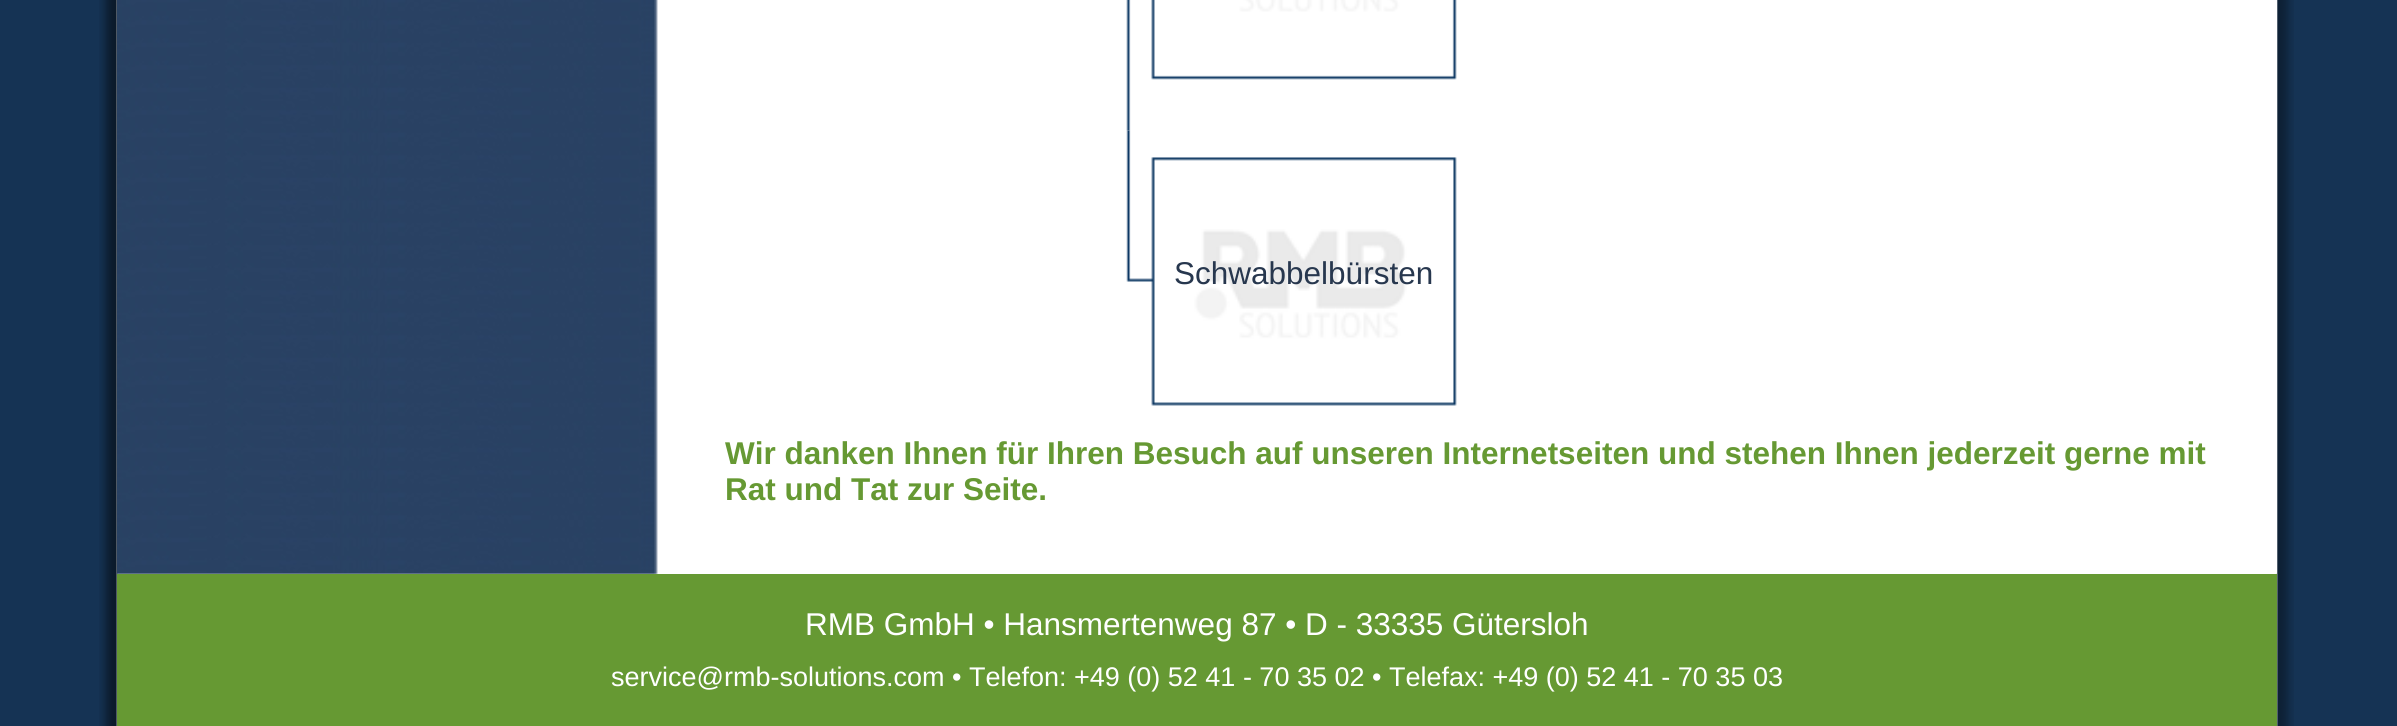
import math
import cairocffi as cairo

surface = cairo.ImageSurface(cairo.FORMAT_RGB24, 2397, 726)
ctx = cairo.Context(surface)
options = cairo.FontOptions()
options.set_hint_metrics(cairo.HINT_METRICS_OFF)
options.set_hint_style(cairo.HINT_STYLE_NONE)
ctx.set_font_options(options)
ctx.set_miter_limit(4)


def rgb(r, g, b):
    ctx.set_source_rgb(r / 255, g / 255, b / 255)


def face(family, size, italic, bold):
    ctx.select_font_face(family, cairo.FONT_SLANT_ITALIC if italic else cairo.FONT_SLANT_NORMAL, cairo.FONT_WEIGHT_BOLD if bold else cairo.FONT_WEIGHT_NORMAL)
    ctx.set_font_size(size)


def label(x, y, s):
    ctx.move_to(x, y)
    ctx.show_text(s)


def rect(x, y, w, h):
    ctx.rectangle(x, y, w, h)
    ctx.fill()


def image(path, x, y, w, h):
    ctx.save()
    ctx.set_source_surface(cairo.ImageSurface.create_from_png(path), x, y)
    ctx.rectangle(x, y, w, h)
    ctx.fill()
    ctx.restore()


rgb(21, 51, 84)
ctx.paint()
image('image0.png', 99, 0, 2195, 726)
image('image1.png', 117, 0, 2160, 574)
image('image2.png', 1126, 0, 331, 131)
image('image3.png', 1126, 130, 331, 276)
face('Liberation Sans', 31.5, 0, 0)
rgb(39, 55, 78)
label(1174, 284, 'Schwabbelbürsten')
face('Liberation Sans', 31.5, 0, 1)
rgb(102, 153, 51)
label(725, 464, 'Wir danken Ihnen für Ihren Besuch auf unseren Internetseiten und stehen Ihnen jederzeit gerne mit')
label(725, 500, 'Rat und Tat zur Seite.')
rect(117, 574, 2160, 152)
face('Liberation Sans', 31.5, 0, 0)
rgb(255, 255, 255)
label(805, 635, 'RMB GmbH • Hansmertenweg 87 • D - 33335 Gütersloh')
face('Liberation Sans', 27, 0, 0)
label(611, 686, 'service@rmb-solutions.com • Telefon: +49 (0) 52 41 - 70 35 02 • Telefax: +49 (0) 52 41 - 70 35 03')
surface.write_to_png('render.png')
